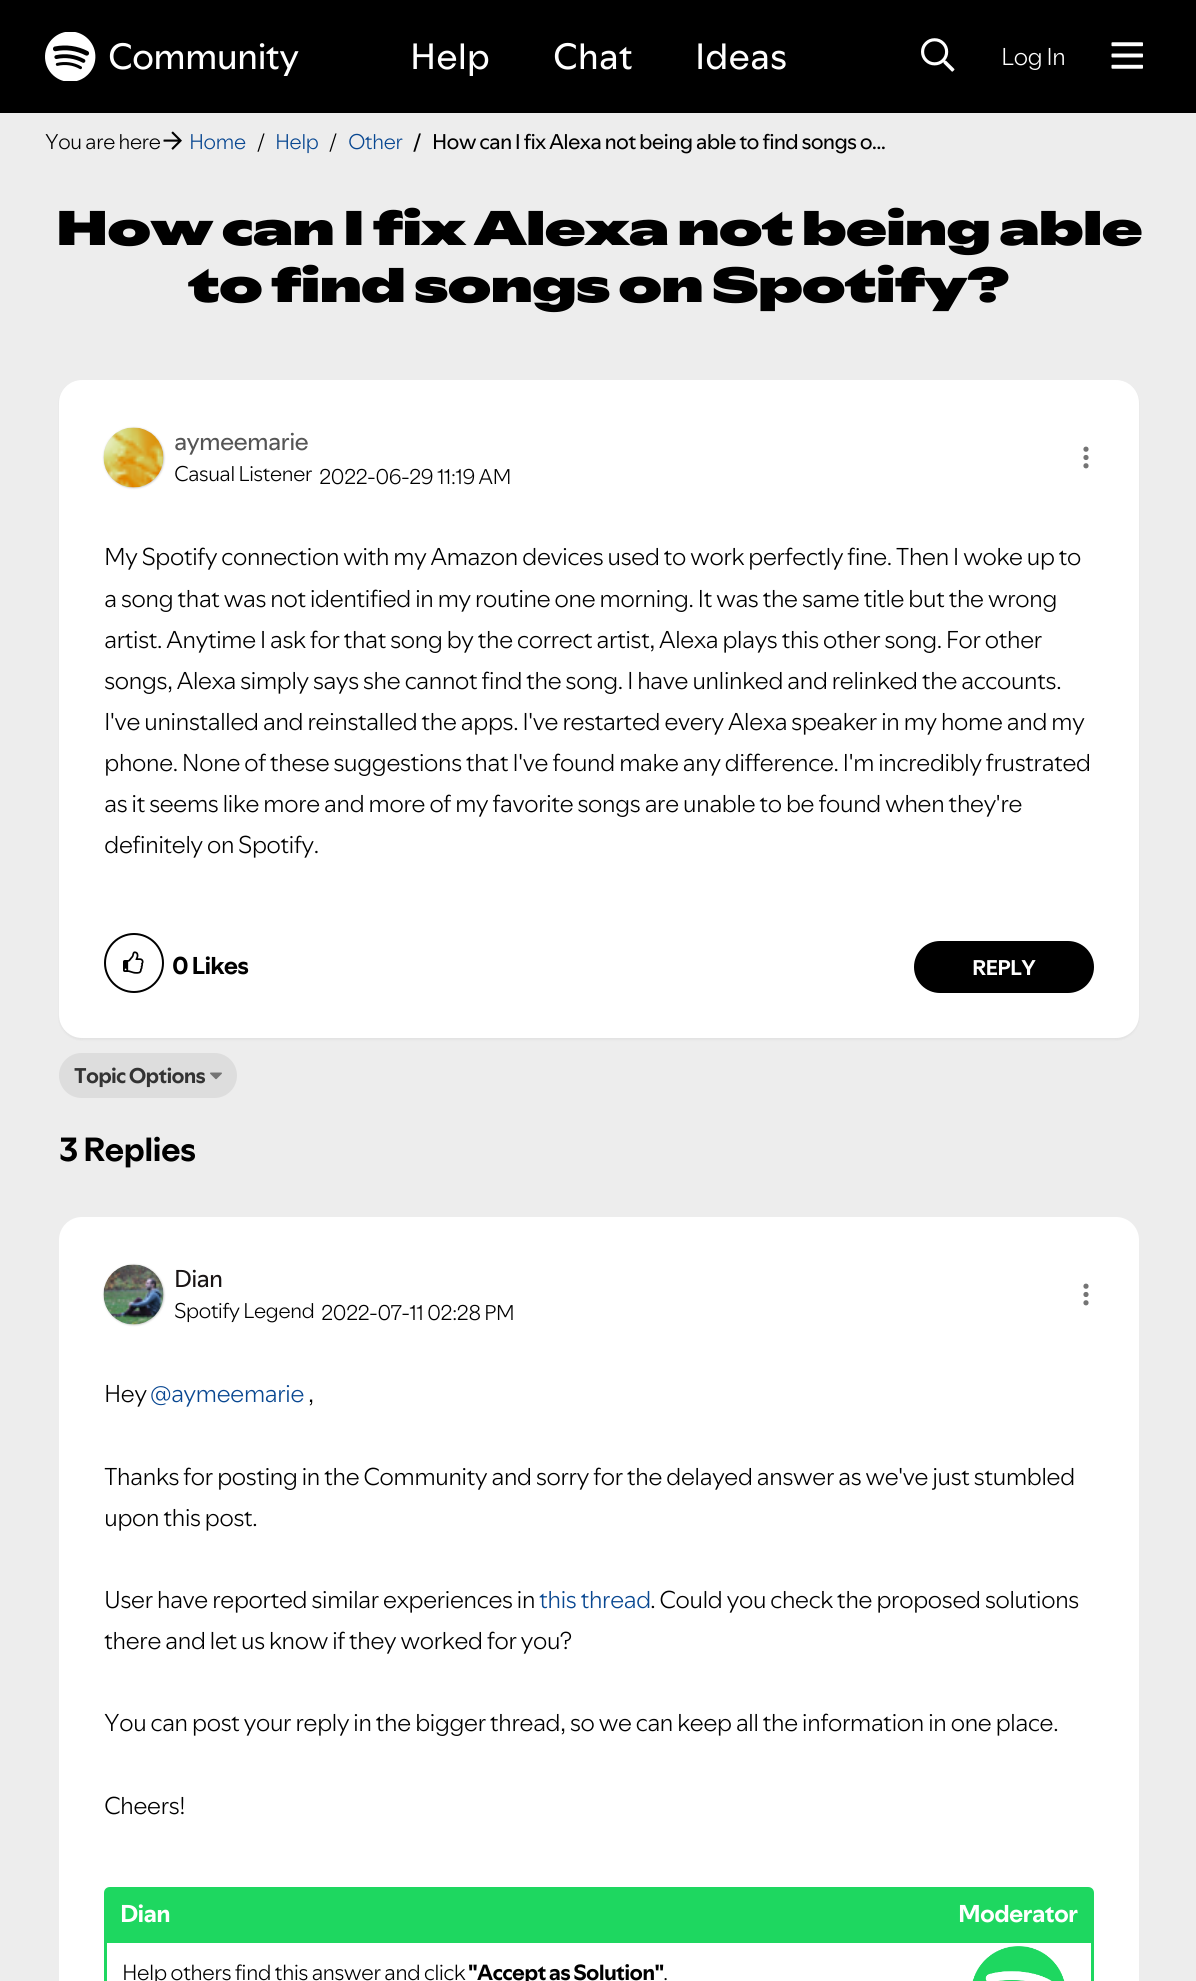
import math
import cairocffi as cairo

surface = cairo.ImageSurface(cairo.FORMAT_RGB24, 1196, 1981)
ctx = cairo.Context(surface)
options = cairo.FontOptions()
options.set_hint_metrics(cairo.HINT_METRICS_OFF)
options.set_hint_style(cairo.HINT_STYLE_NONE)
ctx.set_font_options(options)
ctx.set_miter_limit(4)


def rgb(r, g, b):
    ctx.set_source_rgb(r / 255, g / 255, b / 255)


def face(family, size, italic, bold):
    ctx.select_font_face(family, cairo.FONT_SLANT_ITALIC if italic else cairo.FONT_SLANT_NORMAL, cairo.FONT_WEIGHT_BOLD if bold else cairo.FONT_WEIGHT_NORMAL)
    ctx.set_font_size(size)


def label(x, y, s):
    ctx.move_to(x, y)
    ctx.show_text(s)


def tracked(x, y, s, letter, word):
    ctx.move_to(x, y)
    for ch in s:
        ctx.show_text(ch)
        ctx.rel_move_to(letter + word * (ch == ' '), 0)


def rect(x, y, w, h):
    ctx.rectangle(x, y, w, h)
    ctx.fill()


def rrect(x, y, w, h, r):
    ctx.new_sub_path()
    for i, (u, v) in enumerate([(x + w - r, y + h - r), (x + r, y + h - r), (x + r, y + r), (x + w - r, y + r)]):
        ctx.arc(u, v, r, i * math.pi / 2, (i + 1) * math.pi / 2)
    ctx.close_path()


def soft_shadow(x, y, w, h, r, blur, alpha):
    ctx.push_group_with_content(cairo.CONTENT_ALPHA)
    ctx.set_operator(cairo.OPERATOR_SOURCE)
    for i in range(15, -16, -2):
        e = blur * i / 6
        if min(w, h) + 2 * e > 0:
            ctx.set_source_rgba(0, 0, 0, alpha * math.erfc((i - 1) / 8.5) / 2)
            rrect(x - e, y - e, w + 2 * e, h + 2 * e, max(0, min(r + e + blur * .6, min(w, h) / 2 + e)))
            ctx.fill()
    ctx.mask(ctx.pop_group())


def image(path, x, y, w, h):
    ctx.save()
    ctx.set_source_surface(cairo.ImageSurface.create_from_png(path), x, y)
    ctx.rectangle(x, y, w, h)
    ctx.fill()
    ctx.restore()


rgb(237, 237, 237)
ctx.paint()
rgb(0, 0, 0)
rect(0, 0, 1196, 113)
image('image0.png', 45, 32, 51, 49)
face('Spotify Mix', 36, 0, 0)
rgb(255, 255, 255)
tracked(108, 69, 'Community', -0.75, 0)
label(410, 69, 'Help')
label(553, 69, 'Chat')
label(695, 69, 'Ideas')
image('image1.png', 921, 38, 34, 34)
face('Spotify Mix Light', 24, 0, 0)
tracked(1001, 65, 'Log In', -0.75, 0)
image('image2.png', 1111, 42, 32, 27)
face('Spotify Mix Light', 21, 0, 0)
rgb(0, 0, 0)
tracked(45, 149, 'You are here', -0.75, 0)
image('image3.png', 163, 131, 19, 19)
rgb(8, 71, 145)
tracked(189, 149, 'Home', -0.75, 0)
rgb(0, 0, 0)
tracked(257, 149, '/', -0.75, 0)
rgb(8, 71, 145)
tracked(275, 149, 'Help', -0.75, 0)
rgb(0, 0, 0)
tracked(329, 149, '/', -0.75, 0)
rgb(8, 71, 145)
tracked(348, 149, 'Other', -0.75, 0)
face('Spotify Mix', 21, 0, 0)
rgb(0, 0, 0)
tracked(413, 149, '/', -0.75, 0)
tracked(432, 149, 'How can I fix Alexa not being able to find songs o...', -0.75, 0)
face('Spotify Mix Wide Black', 48, 0, 0)
tracked(56, 245, 'How can I fix Alexa not being able', -0.75, 0)
tracked(188, 302, 'to find songs on Spotify?', -0.75, 0)
rgb(0, 0, 0)
soft_shadow(59, 381, 1080, 659, 23, 1, 0.05)
rgb(255, 255, 255)
rrect(59, 380, 1080, 658, 23)
ctx.fill()
rgb(196, 196, 196)
soft_shadow(104, 428, 60, 60, 30, 1, 1)
image('image4.png', 103, 427, 61, 61)
face('Spotify Mix', 24, 0, 0)
rgb(85, 85, 85)
tracked(174, 450, 'aymeemarie', -0.75, 0)
face('Spotify Mix Light', 21, 0, 0)
rgb(0, 0, 0)
tracked(174, 481, 'Casual Listener', -0.75, 0)
tracked(319, 484, '2022-06-29', -0.75, 0)
tracked(437, 484, '11:19 AM', -0.75, 0)
rgb(116, 116, 116)
ctx.new_path()
ctx.arc(1086, 449.2, 2.6, 0, 2 * math.pi)
ctx.fill()
ctx.arc(1086, 457.5, 2.6, 0, 2 * math.pi)
ctx.fill()
ctx.arc(1086, 465.8, 2.6, 0, 2 * math.pi)
ctx.fill()
face('Spotify Mix Light', 24, 0, 0)
rgb(0, 0, 0)
tracked(104, 565, 'My Spotify connection with my Amazon devices used to work perfectly fine. Then I woke up to', -0.75, 0)
tracked(104, 607, 'a song that was not identified in my routine one morning. It was the same title but the wrong', -0.75, 0)
tracked(104, 648, 'artist. Anytime I ask for that song by the correct artist, Alexa plays this other song. For other', -0.75, 0)
tracked(104, 689, 'songs, Alexa simply says she cannot find the song. I have unlinked and relinked the accounts.', -0.75, 0)
tracked(104, 730, 'I\'ve uninstalled and reinstalled the apps. I\'ve restarted every Alexa speaker in my home and my', -0.75, 0)
tracked(104, 771, 'phone. None of these suggestions that I\'ve found make any difference. I\'m incredibly frustrated', -0.75, 0)
tracked(104, 812, 'as it seems like more and more of my favorite songs are unable to be found when they\'re', -0.75, 0)
tracked(104, 853, 'definitely on Spotify.', -0.75, 0)
ctx.new_path()
ctx.arc(134, 963, 29, 0, 2 * math.pi)
ctx.stroke()
image('image5.png', 123, 951, 21, 23)
face('Spotify Mix', 24, 0, 1)
tracked(172, 974, '0 Likes', -0.75, 0)
rrect(915, 942, 178, 50, 25)
ctx.fill_preserve()
ctx.stroke()
face('Spotify Mix', 21, 0, 1)
rgb(255, 255, 255)
tracked(972, 975, 'REPLY', -0.75, 0)
rgb(221, 221, 221)
rrect(59, 1053, 178, 45, 22.5)
ctx.fill()
rgb(51, 51, 51)
tracked(74, 1083, 'Topic Options', -0.75, 0)
image('image6.png', 210, 1072, 12, 8)
face('Spotify Mix', 33, 0, 1)
rgb(0, 0, 0)
tracked(59, 1161, '3 Replies', -0.75, 0)
rgb(255, 255, 255)
rrect(59, 1217, 1080, 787, 23)
ctx.fill()
rgb(196, 196, 196)
soft_shadow(104, 1265, 60, 60, 30, 1, 1)
image('image7.png', 103, 1264, 61, 61)
face('Spotify Mix', 24, 0, 0)
rgb(25, 20, 20)
tracked(174, 1287, 'Dian', -0.75, 0)
face('Spotify Mix Light', 21, 0, 0)
rgb(0, 0, 0)
tracked(174, 1318, 'Spotify Legend', -0.75, 0)
tracked(321, 1320, '2022-07-11', -0.75, 0)
tracked(427, 1320, '02:28 PM', -0.75, 0)
rgb(116, 116, 116)
ctx.new_path()
ctx.arc(1086, 1286.2, 2.6, 0, 2 * math.pi)
ctx.fill()
ctx.arc(1086, 1294.5, 2.6, 0, 2 * math.pi)
ctx.fill()
ctx.arc(1086, 1302.8, 2.6, 0, 2 * math.pi)
ctx.fill()
face('Spotify Mix Light', 24, 0, 0)
rgb(0, 0, 0)
tracked(104, 1402, 'Hey', -0.75, 0)
rgb(8, 71, 145)
tracked(150, 1402, '@aymeemarie', -0.75, 0)
rgb(0, 0, 0)
tracked(308, 1402, ',', -0.75, 0)
tracked(104, 1485, 'Thanks for posting in the Community and sorry for the delayed answer as we\'ve just stumbled', -0.75, 0)
tracked(104, 1526, 'upon this post.', -0.75, 0)
tracked(104, 1608, 'User have reported similar experiences in', -0.75, 0)
rgb(8, 71, 145)
tracked(539, 1608, 'this thread', -0.75, 0)
rgb(0, 0, 0)
tracked(650, 1608, '. Could you check the proposed solutions', -0.75, 0)
tracked(104, 1649, 'there and let us know if they worked for you?', -0.75, 0)
tracked(104, 1731, 'You can post your reply in the bigger thread, so we can keep all the information in one place.', -0.75, 0)
tracked(104, 1814, 'Cheers!', -0.75, 0)
rgb(30, 215, 96)
ctx.new_path()
ctx.move_to(110, 1888)
ctx.line_to(1088, 1888)
ctx.curve_to(1091, 1888, 1093, 1890, 1093, 1893)
ctx.line_to(1093, 1942)
ctx.line_to(105, 1942)
ctx.line_to(105, 1893)
ctx.curve_to(105, 1890, 107, 1888, 110, 1888)
ctx.close_path()
ctx.fill_preserve()
ctx.stroke()
face('Spotify Mix', 24, 0, 1)
rgb(255, 255, 255)
tracked(120, 1922, 'Dian', -0.75, 0)
tracked(958, 1922, 'Moderator', -0.75, 0)
image('image8.png', 972, 1946, 93, 35)
rgb(30, 215, 96)
rect(1091, 1943, 3, 38)
rect(104, 1943, 3, 38)
face('Spotify Mix Light', 21.6, 0, 0)
rgb(0, 0, 0)
tracked(122, 1980, 'Help others find this answer and click', -0.75, 0)
face('Spotify Mix', 21.6, 0, 1)
tracked(468, 1980, '"Accept as Solution"', -0.75, 0)
face('Spotify Mix Light', 21.6, 0, 0)
tracked(663, 1980, '.', -0.75, 0)
surface.write_to_png('render.png')
